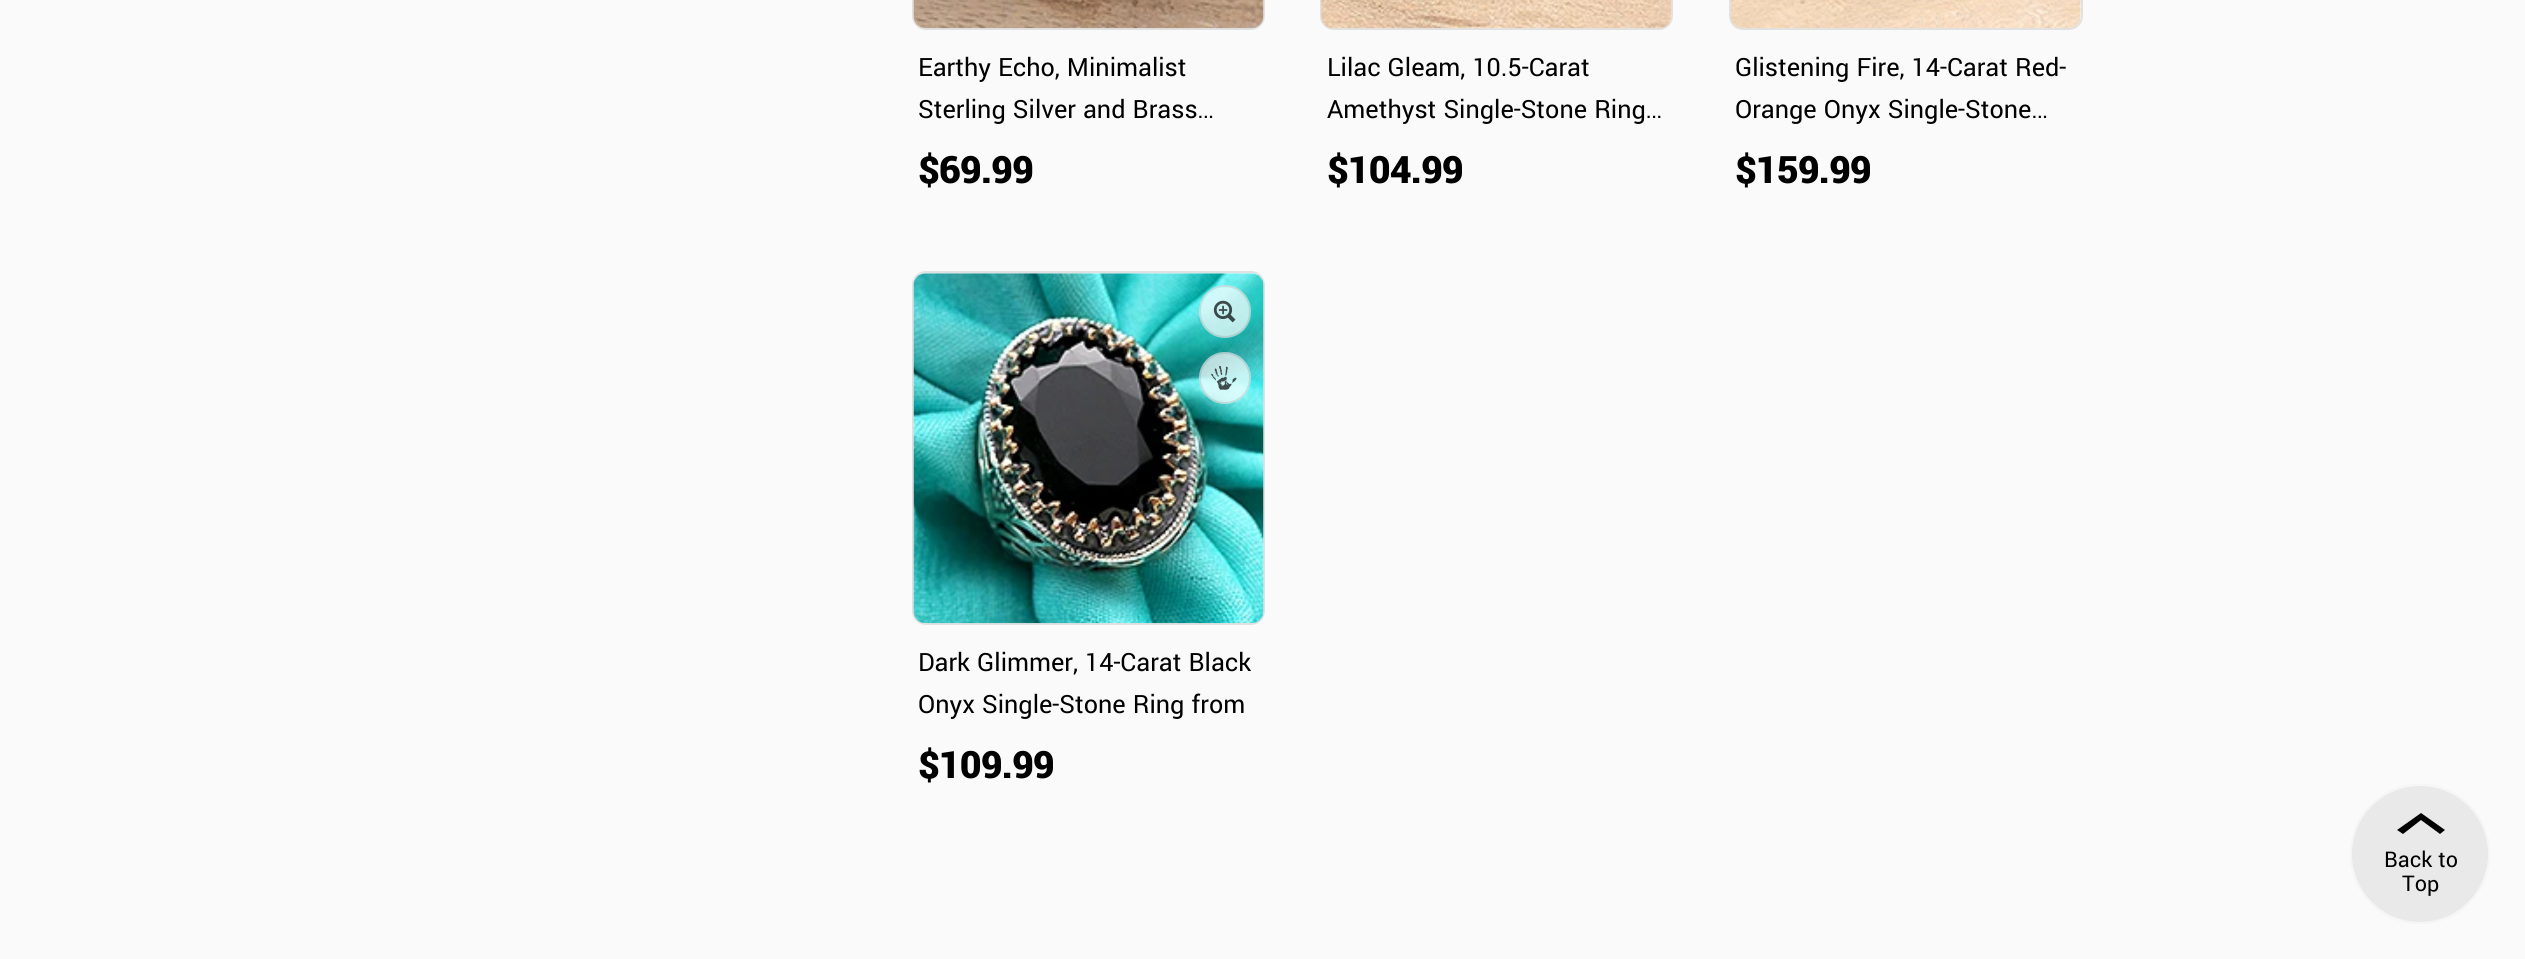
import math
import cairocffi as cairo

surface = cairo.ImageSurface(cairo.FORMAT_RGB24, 2525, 959)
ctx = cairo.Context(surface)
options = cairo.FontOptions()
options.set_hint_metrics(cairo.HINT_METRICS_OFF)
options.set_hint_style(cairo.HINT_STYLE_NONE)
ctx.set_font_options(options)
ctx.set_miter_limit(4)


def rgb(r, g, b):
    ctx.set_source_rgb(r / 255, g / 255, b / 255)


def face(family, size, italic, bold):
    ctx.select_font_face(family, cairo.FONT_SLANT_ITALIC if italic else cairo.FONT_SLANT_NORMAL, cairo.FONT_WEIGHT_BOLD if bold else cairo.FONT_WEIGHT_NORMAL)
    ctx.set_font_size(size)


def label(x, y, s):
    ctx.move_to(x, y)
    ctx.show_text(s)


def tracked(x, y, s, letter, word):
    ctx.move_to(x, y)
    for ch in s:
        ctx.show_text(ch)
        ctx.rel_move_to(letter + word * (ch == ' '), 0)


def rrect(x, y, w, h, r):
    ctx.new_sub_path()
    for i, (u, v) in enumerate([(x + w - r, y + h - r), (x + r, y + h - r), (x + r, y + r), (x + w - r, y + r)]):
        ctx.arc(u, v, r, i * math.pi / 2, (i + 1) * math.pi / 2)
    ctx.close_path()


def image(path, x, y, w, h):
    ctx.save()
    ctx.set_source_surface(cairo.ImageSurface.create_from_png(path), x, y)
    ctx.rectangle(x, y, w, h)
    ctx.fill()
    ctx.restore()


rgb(250, 250, 250)
ctx.paint()
rrect(913, -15, 351, 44, 13)
rgb(225, 225, 225)
ctx.stroke()
image('image0.png', 913, 0, 351, 29)
face('Yantramanav', 28, 0, 0)
rgb(0, 0, 0)
label(918, 76, 'Earthy Echo, Minimalist')
label(918, 118, 'Sterling Silver and Brass…')
face('Yantramanav Black', 42, 0, 0)
tracked(918, 183, '$69.99', -1, 0)
rrect(1321, -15, 351, 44, 13)
rgb(225, 225, 225)
ctx.stroke()
image('image1.png', 1321, 0, 351, 29)
face('Yantramanav', 28, 0, 0)
rgb(0, 0, 0)
label(1327, 76, 'Lilac Gleam, 10.5-Carat')
label(1327, 118, 'Amethyst Single-Stone Ring…')
face('Yantramanav Black', 42, 0, 0)
tracked(1327, 183, '$104.99', -1, 0)
rrect(1730, -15, 352, 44, 13)
rgb(225, 225, 225)
ctx.stroke()
image('image2.png', 1731, 0, 350, 28)
face('Yantramanav', 28, 0, 0)
rgb(0, 0, 0)
label(1735, 76, 'Glistening Fire, 14-Carat Red-')
label(1735, 118, 'Orange Onyx Single-Stone…')
face('Yantramanav Black', 42, 0, 0)
tracked(1735, 183, '$159.99', -1, 0)
rrect(913, 272, 351, 352, 13)
rgb(225, 225, 225)
ctx.stroke()
image('image3.png', 913, 273, 351, 351)
ctx.set_source_rgba(1, 1, 1, 0.7)
rrect(1199, 285, 52, 53, 26)
ctx.fill()
rrect(1200, 286, 50, 51, 25)
ctx.set_source_rgba(0, 0, 0, 0.1)
ctx.stroke()
image('image4.png', 1213, 300, 23, 23)
ctx.set_source_rgba(1, 1, 1, 0.7)
ctx.arc(1225, 378, 26, 0, 2 * math.pi)
ctx.fill()
ctx.arc(1225, 378, 25, 0, 2 * math.pi)
ctx.set_source_rgba(0, 0, 0, 0.1)
ctx.stroke()
image('image5.png', 1211, 365, 26, 25)
face('Yantramanav', 28, 0, 0)
rgb(0, 0, 0)
label(918, 671, 'Dark Glimmer, 14-Carat Black')
label(918, 713, 'Onyx Single-Stone Ring from')
face('Yantramanav Black', 42, 0, 0)
tracked(918, 778, '$109.99', -1, 0)
rgb(233, 233, 233)
ctx.new_path()
ctx.arc(2420, 854, 70, 0, 2 * math.pi)
ctx.fill()
ctx.arc(2420, 854, 69, 0, 2 * math.pi)
ctx.set_source_rgba(1, 1, 1, 0.6)
ctx.stroke()
rgb(0, 0, 0)
ctx.new_path()
ctx.move_to(2440, 834)
ctx.line_to(2445, 830)
ctx.line_to(2421, 813)
ctx.line_to(2397, 830)
ctx.line_to(2403, 834)
ctx.line_to(2421, 820)
ctx.close_path()
ctx.fill()
face('Yantramanav', 24, 0, 0)
label(2384, 867, 'Back to')
label(2402, 891, 'Top')
surface.write_to_png('render.png')
